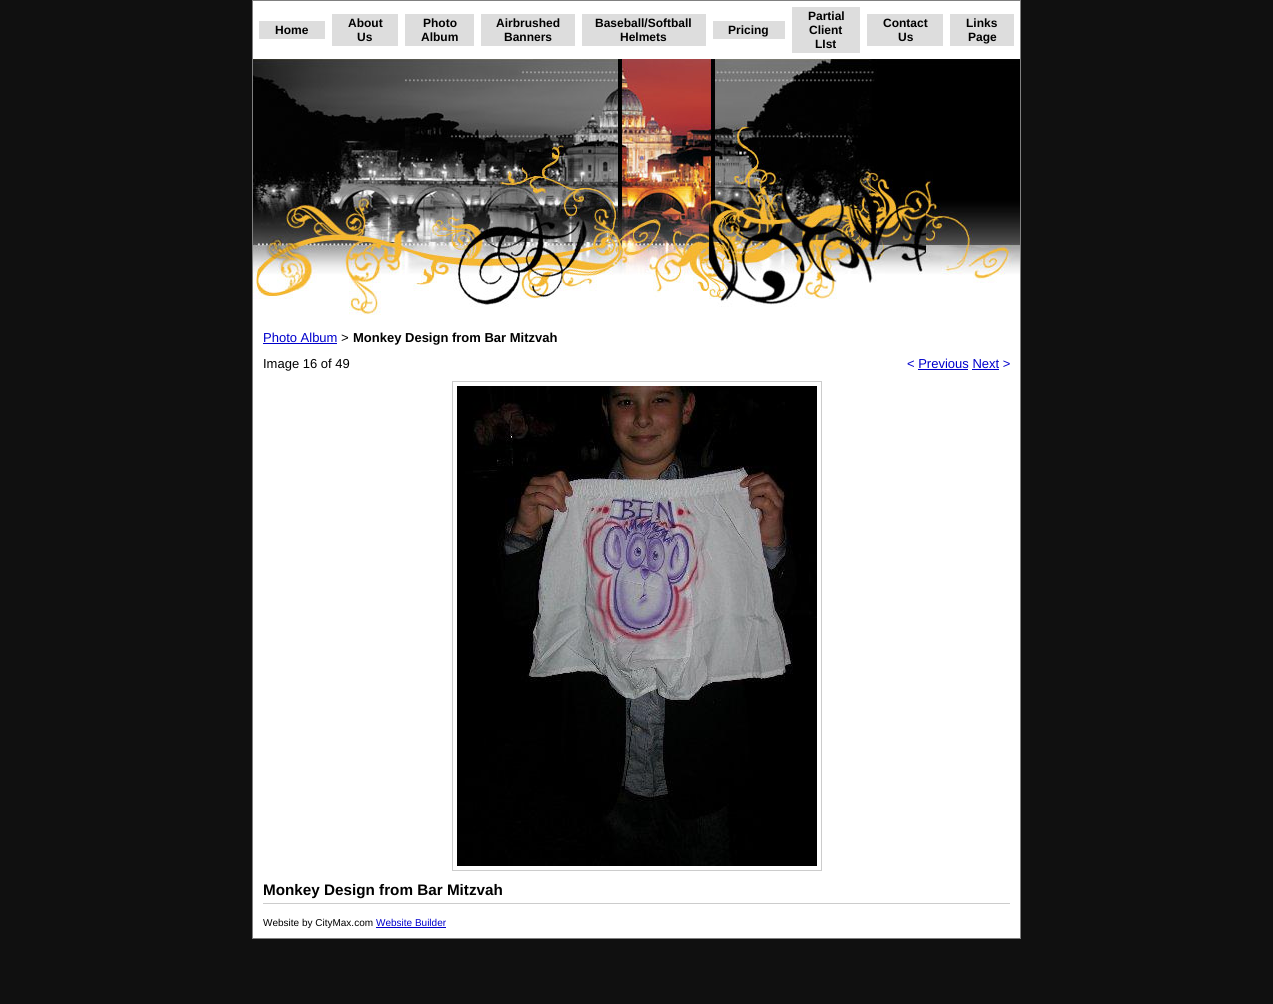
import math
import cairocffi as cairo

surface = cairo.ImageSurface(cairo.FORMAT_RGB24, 1273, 1004)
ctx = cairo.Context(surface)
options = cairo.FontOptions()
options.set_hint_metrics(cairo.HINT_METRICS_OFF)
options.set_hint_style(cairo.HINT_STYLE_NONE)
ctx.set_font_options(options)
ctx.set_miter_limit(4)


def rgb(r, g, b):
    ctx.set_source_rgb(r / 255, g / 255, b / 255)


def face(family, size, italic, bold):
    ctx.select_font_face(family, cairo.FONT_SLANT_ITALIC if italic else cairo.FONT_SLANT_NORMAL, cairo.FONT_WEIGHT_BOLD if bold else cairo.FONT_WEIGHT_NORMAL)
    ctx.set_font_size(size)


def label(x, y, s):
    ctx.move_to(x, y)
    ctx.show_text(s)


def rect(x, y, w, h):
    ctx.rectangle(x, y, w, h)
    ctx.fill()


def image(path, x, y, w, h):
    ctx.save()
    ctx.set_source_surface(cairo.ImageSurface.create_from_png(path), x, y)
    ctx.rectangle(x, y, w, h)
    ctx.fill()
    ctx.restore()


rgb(16, 16, 16)
ctx.paint()
rgb(128, 128, 128)
rect(252, 0, 769, 939)
rgb(255, 255, 255)
rect(253, 1, 767, 58)
rgb(221, 221, 221)
rect(259, 21, 66, 18)
face('Liberation Sans', 12, 0, 1)
rgb(0, 0, 0)
label(275, 34, 'Home')
rgb(221, 221, 221)
rect(332, 14, 66, 32)
rgb(0, 0, 0)
label(348, 27, 'About')
label(357, 41, 'Us')
rgb(221, 221, 221)
rect(405, 14, 69, 32)
rgb(0, 0, 0)
label(423, 27, 'Photo')
label(421, 41, 'Album')
rgb(221, 221, 221)
rect(481, 14, 94, 32)
rgb(0, 0, 0)
label(496, 27, 'Airbrushed')
label(504, 41, 'Banners')
rgb(221, 221, 221)
rect(582, 14, 124, 32)
rgb(0, 0, 0)
label(595, 27, 'Baseball/Softball')
label(620, 41, 'Helmets')
rgb(221, 221, 221)
rect(713, 21, 72, 18)
rgb(0, 0, 0)
label(728, 34, 'Pricing')
rgb(221, 221, 221)
rect(792, 7, 68, 46)
rgb(0, 0, 0)
label(808, 20, 'Partial')
label(809, 34, 'Client')
label(815, 48, 'LIst')
rgb(221, 221, 221)
rect(867, 14, 76, 32)
rgb(0, 0, 0)
label(883, 27, 'Contact')
label(898, 41, 'Us')
rgb(221, 221, 221)
rect(950, 14, 64, 32)
rgb(0, 0, 0)
label(966, 27, 'Links')
label(968, 41, 'Page')
image('image0.png', 253, 59, 767, 261)
rgb(255, 255, 255)
rect(253, 320, 767, 618)
face('Liberation Sans', 13, 0, 0)
rgb(0, 0, 204)
label(263, 342, 'Photo Album')
rect(263, 343, 74, 1)
face('Liberation Mono', 13, 0, 0)
rgb(0, 0, 0)
label(341, 342, '>')
face('Liberation Sans', 13, 0, 1)
label(353, 342, 'Monkey Design from Bar Mitzvah')
face('Liberation Sans', 13, 0, 0)
label(263, 368, 'Image 16 of 49')
rgb(0, 0, 204)
label(907, 368, '< Previous Next >')
rect(918, 369, 50, 1)
rect(972, 369, 27, 1)
ctx.rectangle(452.5, 381.5, 369, 489)
rgb(204, 204, 204)
ctx.set_line_width(1)
ctx.stroke()
image('image1.png', 457, 386, 360, 480)
rect(263, 903, 747, 1)
face('Liberation Sans', 15.25, 0, 1)
rgb(0, 0, 0)
label(263, 895, 'Monkey Design from Bar Mitzvah')
face('Liberation Sans', 10, 0, 0)
label(263, 926, 'Website by CityMax.com')
rgb(0, 0, 204)
label(376, 926, 'Website Builder')
rect(376, 927, 70, 1)
surface.write_to_png('render.png')
